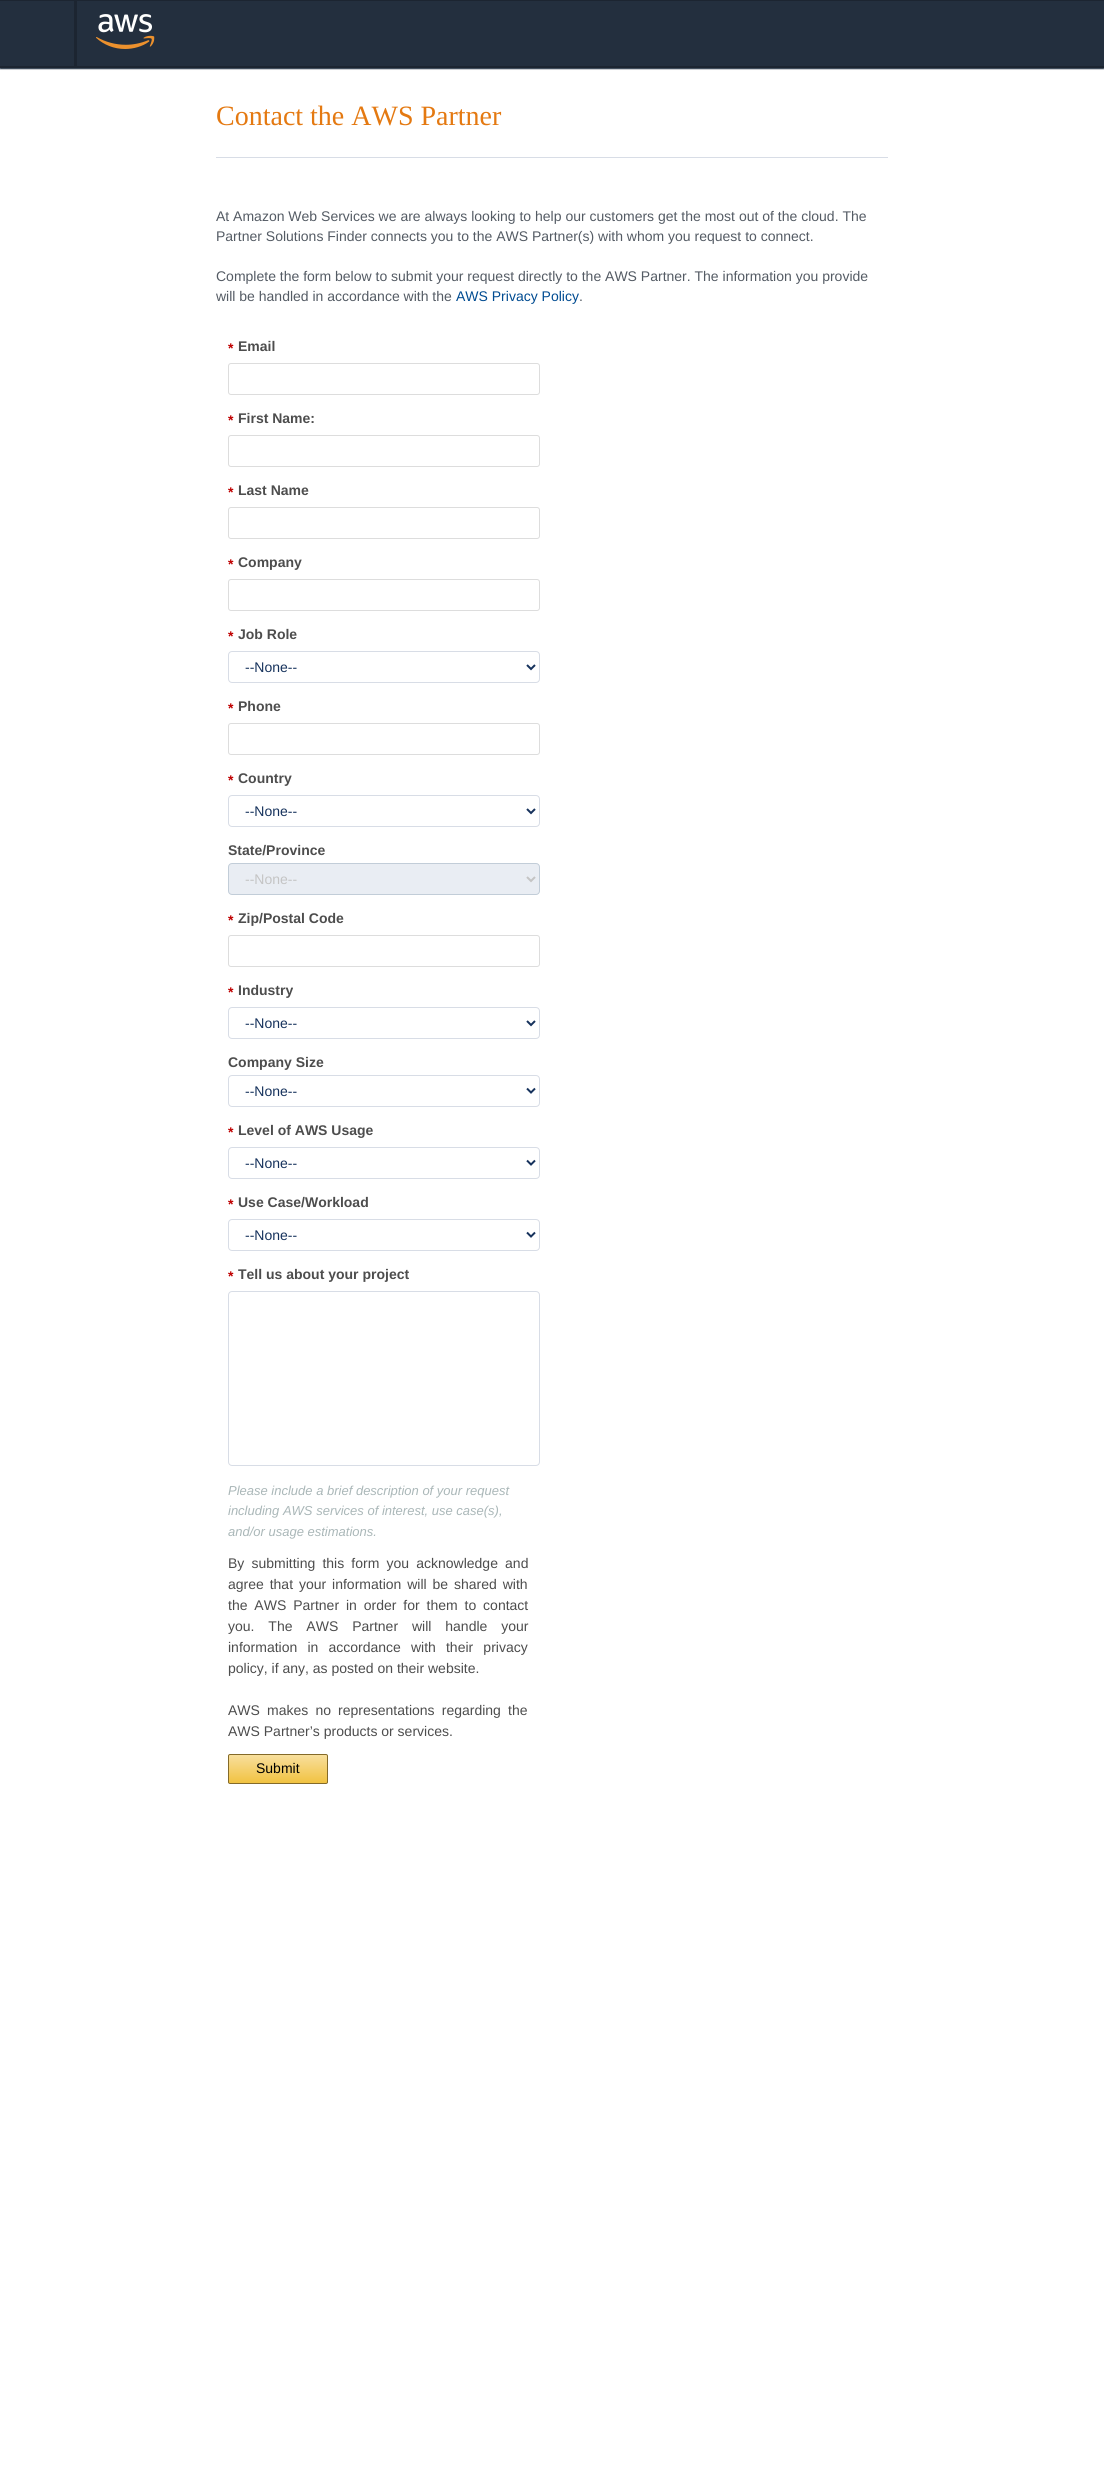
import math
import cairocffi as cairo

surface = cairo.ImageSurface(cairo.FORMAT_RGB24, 1104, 2476)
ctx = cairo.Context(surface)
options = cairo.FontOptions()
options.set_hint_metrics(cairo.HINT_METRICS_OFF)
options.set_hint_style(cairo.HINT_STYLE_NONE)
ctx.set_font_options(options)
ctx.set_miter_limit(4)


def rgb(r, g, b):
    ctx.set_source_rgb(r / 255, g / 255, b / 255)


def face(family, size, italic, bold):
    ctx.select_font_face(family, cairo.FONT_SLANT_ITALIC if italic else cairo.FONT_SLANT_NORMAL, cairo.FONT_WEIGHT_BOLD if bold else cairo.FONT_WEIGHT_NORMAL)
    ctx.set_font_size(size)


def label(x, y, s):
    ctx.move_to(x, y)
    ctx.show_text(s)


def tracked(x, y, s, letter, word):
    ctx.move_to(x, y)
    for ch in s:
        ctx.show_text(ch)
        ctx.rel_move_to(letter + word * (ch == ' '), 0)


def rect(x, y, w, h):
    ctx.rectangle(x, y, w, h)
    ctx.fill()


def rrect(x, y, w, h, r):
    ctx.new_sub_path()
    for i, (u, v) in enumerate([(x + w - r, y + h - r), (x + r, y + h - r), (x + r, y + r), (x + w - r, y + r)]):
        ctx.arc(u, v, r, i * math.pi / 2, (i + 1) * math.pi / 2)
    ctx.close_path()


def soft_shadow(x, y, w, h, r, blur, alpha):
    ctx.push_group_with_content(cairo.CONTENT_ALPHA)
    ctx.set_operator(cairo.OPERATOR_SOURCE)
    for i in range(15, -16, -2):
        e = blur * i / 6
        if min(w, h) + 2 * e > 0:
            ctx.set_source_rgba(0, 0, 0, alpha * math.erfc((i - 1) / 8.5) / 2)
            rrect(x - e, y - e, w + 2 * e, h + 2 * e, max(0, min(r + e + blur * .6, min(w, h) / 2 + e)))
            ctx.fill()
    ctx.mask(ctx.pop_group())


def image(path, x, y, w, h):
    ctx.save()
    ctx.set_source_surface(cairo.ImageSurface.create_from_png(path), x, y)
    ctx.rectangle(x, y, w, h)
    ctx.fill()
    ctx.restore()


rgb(255, 255, 255)
ctx.paint()
rgb(39, 53, 70)
soft_shadow(0, 1, 1104, 68, 0, 0.5, 1)
rgb(35, 47, 62)
rect(0, 1, 1104, 65)
rgb(28, 37, 49)
rect(0, 66, 1104, 2)
rect(75, 0, 1, 68)
rect(74, 0, 1, 67)
rect(76, 0, 1, 67)
rect(0, 0, 1104, 1)
image('image0.png', 96, 14, 59, 35)
rgb(216, 221, 230)
rect(216, 157, 672, 1)
face('Liberation Serif', 28, 0, 0)
rgb(228, 121, 17)
label(216, 125, 'Contact the AWS Partner')
face('Liberation Sans', 14, 0, 0)
rgb(84, 91, 100)
label(216, 221, 'At Amazon Web Services we are always looking to help our customers get the most out of the cloud. The')
label(216, 241, 'Partner Solutions Finder connects you to the AWS Partner(s) with whom you request to connect.')
label(216, 281, 'Complete the form below to submit your request directly to the AWS Partner. The information you provide')
label(216, 301, 'will be handled in accordance with the')
rgb(0, 75, 145)
label(456, 301, 'AWS Privacy Policy')
rgb(84, 91, 100)
label(579, 301, '.')
face('Liberation Sans', 14, 0, 1)
rgb(191, 0, 0)
label(228, 353, '*')
rgb(77, 77, 77)
label(238, 351, 'Email')
rrect(228.5, 363.5, 311, 31, 2.5)
rgb(221, 221, 221)
ctx.set_line_width(1)
ctx.stroke()
rgb(191, 0, 0)
label(228, 425, '*')
rgb(77, 77, 77)
label(238, 423, 'First Name:')
rrect(228.5, 435.5, 311, 31, 2.5)
rgb(221, 221, 221)
ctx.stroke()
rgb(191, 0, 0)
label(228, 497, '*')
rgb(77, 77, 77)
label(238, 495, 'Last Name')
rrect(228.5, 507.5, 311, 31, 2.5)
rgb(221, 221, 221)
ctx.stroke()
rgb(191, 0, 0)
label(228, 569, '*')
rgb(77, 77, 77)
label(238, 567, 'Company')
rrect(228.5, 579.5, 311, 31, 2.5)
rgb(221, 221, 221)
ctx.stroke()
rgb(191, 0, 0)
label(228, 641, '*')
rgb(77, 77, 77)
label(238, 639, 'Job Role')
rrect(228.5, 651.5, 311, 31, 3.5)
rgb(216, 221, 230)
ctx.stroke()
ctx.new_path()
ctx.move_to(527, 665)
ctx.line_to(531, 669)
ctx.line_to(535, 665)
rgb(22, 50, 92)
ctx.set_line_width(2)
ctx.stroke()
face('Liberation Sans', 14, 0, 0)
label(245, 672, '--None--')
face('Liberation Sans', 14, 0, 1)
rgb(191, 0, 0)
label(228, 713, '*')
rgb(77, 77, 77)
label(238, 711, 'Phone')
rrect(228.5, 723.5, 311, 31, 2.5)
rgb(221, 221, 221)
ctx.set_line_width(1)
ctx.stroke()
rgb(191, 0, 0)
label(228, 785, '*')
rgb(77, 77, 77)
label(238, 783, 'Country')
rrect(228.5, 795.5, 311, 31, 3.5)
rgb(216, 221, 230)
ctx.stroke()
ctx.new_path()
ctx.move_to(527, 809)
ctx.line_to(531, 813)
ctx.line_to(535, 809)
rgb(22, 50, 92)
ctx.set_line_width(2)
ctx.stroke()
face('Liberation Sans', 14, 0, 0)
label(245, 816, '--None--')
face('Liberation Sans', 14, 0, 1)
rgb(77, 77, 77)
label(228, 855, 'State/Province')
rgb(233, 237, 243)
rrect(228.5, 863.5, 311, 31, 3.5)
ctx.fill_preserve()
rgb(194, 205, 216)
ctx.set_line_width(1)
ctx.stroke()
ctx.new_path()
ctx.move_to(527, 877)
ctx.line_to(531, 881)
ctx.line_to(535, 877)
rgb(196, 196, 196)
ctx.set_line_width(2)
ctx.stroke()
face('Liberation Sans', 14, 0, 0)
label(245, 884, '--None--')
face('Liberation Sans', 14, 0, 1)
rgb(191, 0, 0)
label(228, 925, '*')
rgb(77, 77, 77)
label(238, 923, 'Zip/Postal Code')
rrect(228.5, 935.5, 311, 31, 2.5)
rgb(221, 221, 221)
ctx.set_line_width(1)
ctx.stroke()
rgb(191, 0, 0)
label(228, 997, '*')
rgb(77, 77, 77)
label(238, 995, 'Industry')
rrect(228.5, 1007.5, 311, 31, 3.5)
rgb(216, 221, 230)
ctx.stroke()
ctx.new_path()
ctx.move_to(527, 1021)
ctx.line_to(531, 1025)
ctx.line_to(535, 1021)
rgb(22, 50, 92)
ctx.set_line_width(2)
ctx.stroke()
face('Liberation Sans', 14, 0, 0)
label(245, 1028, '--None--')
face('Liberation Sans', 14, 0, 1)
rgb(77, 77, 77)
label(228, 1067, 'Company Size')
rrect(228.5, 1075.5, 311, 31, 3.5)
rgb(216, 221, 230)
ctx.set_line_width(1)
ctx.stroke()
ctx.new_path()
ctx.move_to(527, 1088.5)
ctx.line_to(531, 1092.5)
ctx.line_to(535, 1088.5)
rgb(22, 50, 92)
ctx.set_line_width(2)
ctx.stroke()
face('Liberation Sans', 14, 0, 0)
label(245, 1096, '--None--')
face('Liberation Sans', 14, 0, 1)
rgb(191, 0, 0)
label(228, 1137, '*')
rgb(77, 77, 77)
label(238, 1135, 'Level of AWS Usage')
rrect(228.5, 1147.5, 311, 31, 3.5)
rgb(216, 221, 230)
ctx.set_line_width(1)
ctx.stroke()
ctx.new_path()
ctx.move_to(527, 1160.5)
ctx.line_to(531, 1164.5)
ctx.line_to(535, 1160.5)
rgb(22, 50, 92)
ctx.set_line_width(2)
ctx.stroke()
face('Liberation Sans', 14, 0, 0)
label(245, 1168, '--None--')
face('Liberation Sans', 14, 0, 1)
rgb(191, 0, 0)
label(228, 1209, '*')
rgb(77, 77, 77)
label(238, 1207, 'Use Case/Workload')
rrect(228.5, 1219.5, 311, 31, 3.5)
rgb(216, 221, 230)
ctx.set_line_width(1)
ctx.stroke()
ctx.new_path()
ctx.move_to(527, 1232.5)
ctx.line_to(531, 1236.5)
ctx.line_to(535, 1232.5)
rgb(22, 50, 92)
ctx.set_line_width(2)
ctx.stroke()
face('Liberation Sans', 14, 0, 0)
label(245, 1240, '--None--')
face('Liberation Sans', 14, 0, 1)
rgb(191, 0, 0)
label(228, 1281, '*')
rgb(77, 77, 77)
label(238, 1279, 'Tell us about your project')
rrect(228.5, 1291.5, 311, 174, 3.5)
rgb(216, 221, 230)
ctx.set_line_width(1)
ctx.stroke()
face('Liberation Sans', 13, 1, 0)
rgb(170, 183, 184)
label(228, 1495, 'Please include a brief description of your request')
label(228, 1515, 'including AWS services of interest, use case(s),')
label(228, 1536, 'and/or usage estimations.')
face('Liberation Sans', 14, 0, 0)
rgb(77, 77, 77)
tracked(228, 1568, 'By submitting this form you acknowledge and', 0, 3.25)
tracked(228, 1589, 'agree that your information will be shared with', 0, 2)
tracked(228, 1610, 'the AWS Partner in order for them to contact', 0, 3)
tracked(228, 1631, 'you. The AWS Partner will handle your', 0, 10)
tracked(228, 1652, 'information in accordance with their privacy', 0, 6.25)
label(228, 1673, 'policy, if any, as posted on their website.')
tracked(228, 1715, 'AWS makes no representations regarding the', 0, 3.25)
label(228, 1736, 'AWS Partner’s products or services.')
ctx.save()
rrect(228, 1754, 100, 30, 2)
ctx.clip()
gradient = cairo.LinearGradient(278, 1755, 278, 1783)
gradient.add_color_stop_rgba(0, 0.973, 0.875, 0.616, 1)
gradient.add_color_stop_rgba(1, 0.945, 0.761, 0.255, 1)
ctx.set_source(gradient)
rect(228, 1755, 100, 28)
ctx.restore()
rrect(228.5, 1754.5, 99, 29, 1.5)
rgb(132, 106, 41)
ctx.stroke()
rgb(0, 0, 0)
label(256, 1773, 'Submit')
surface.write_to_png('render.png')
